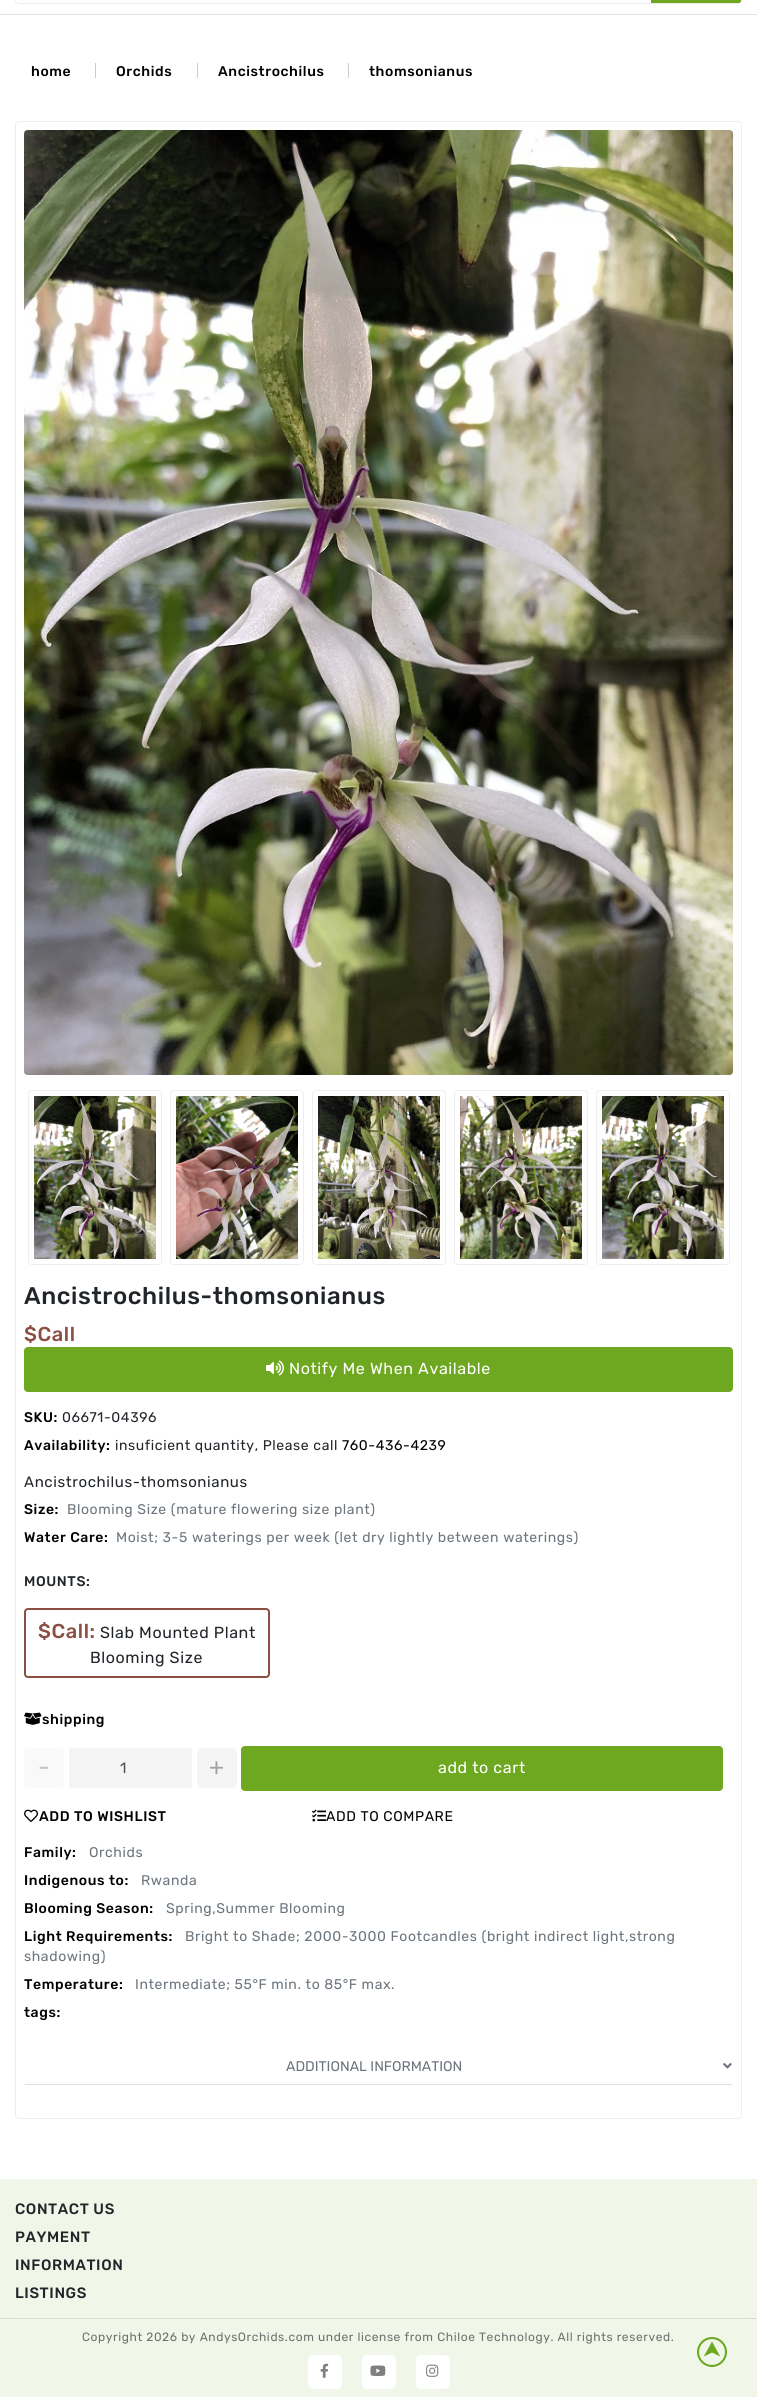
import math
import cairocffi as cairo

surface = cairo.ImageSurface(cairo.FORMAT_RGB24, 757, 2397)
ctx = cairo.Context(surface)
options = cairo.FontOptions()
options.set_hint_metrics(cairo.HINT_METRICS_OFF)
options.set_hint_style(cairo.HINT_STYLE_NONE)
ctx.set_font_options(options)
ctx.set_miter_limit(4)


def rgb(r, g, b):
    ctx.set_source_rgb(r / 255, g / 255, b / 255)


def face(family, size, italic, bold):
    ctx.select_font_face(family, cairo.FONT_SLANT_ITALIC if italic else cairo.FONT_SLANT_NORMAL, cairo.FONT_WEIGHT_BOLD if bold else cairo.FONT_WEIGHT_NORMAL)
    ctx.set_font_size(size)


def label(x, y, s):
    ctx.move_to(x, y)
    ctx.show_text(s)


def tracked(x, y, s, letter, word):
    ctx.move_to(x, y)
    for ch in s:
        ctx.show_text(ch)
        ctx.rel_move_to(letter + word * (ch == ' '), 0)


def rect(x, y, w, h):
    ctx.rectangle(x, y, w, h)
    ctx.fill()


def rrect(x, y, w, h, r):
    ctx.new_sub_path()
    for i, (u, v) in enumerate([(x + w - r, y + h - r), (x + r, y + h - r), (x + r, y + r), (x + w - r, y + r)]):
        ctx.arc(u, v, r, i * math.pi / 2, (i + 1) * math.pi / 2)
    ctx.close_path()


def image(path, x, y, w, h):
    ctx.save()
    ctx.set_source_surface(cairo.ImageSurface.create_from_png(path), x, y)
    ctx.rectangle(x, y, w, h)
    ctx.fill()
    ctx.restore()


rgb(255, 255, 255)
ctx.paint()
rgb(222, 226, 230)
rect(0, 14, 757, 1)
rrect(15.5, -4.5, 726, 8, 3.5)
rgb(238, 238, 238)
ctx.set_line_width(1)
ctx.stroke()
rgb(110, 168, 32)
ctx.new_path()
ctx.move_to(651, -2)
ctx.line_to(739, -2)
ctx.curve_to(740, -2, 741, -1, 741, 0)
ctx.line_to(741, 1)
ctx.curve_to(741, 2, 740, 3, 739, 3)
ctx.line_to(651, 3)
ctx.close_path()
ctx.fill()
face('Rubik Medium', 14, 0, 0)
rgb(0, 0, 0)
tracked(31, 76, 'home', 0.6, 0)
rgb(204, 204, 204)
rect(95, 63, 1, 15)
rgb(0, 0, 0)
tracked(116, 76, 'Orchids', 0.6, 0)
rgb(204, 204, 204)
rect(197, 63, 1, 15)
rgb(0, 0, 0)
tracked(218, 76, 'Ancistrochilus', 0.6, 0)
rgb(204, 204, 204)
rect(348, 63, 1, 15)
rgb(0, 0, 0)
tracked(369, 76, 'thomsonianus', 0.6, 0)
rrect(15.5, 121.5, 726, 1997, 3.5)
rgb(238, 238, 238)
ctx.stroke()
image('image0.png', 24, 130, 709, 945)
rrect(28.5, 1090.5, 133, 174, 3.5)
ctx.stroke()
image('image1.png', 34, 1096, 122, 163)
rrect(170.5, 1090.5, 133, 174, 3.5)
ctx.stroke()
image('image2.png', 176, 1096, 122, 163)
rrect(312.5, 1090.5, 133, 174, 3.5)
ctx.stroke()
image('image3.png', 318, 1096, 122, 163)
rrect(454.5, 1090.5, 133, 174, 3.5)
ctx.stroke()
image('image4.png', 460, 1096, 122, 163)
rrect(596.5, 1090.5, 133, 174, 3.5)
ctx.stroke()
image('image5.png', 602, 1096, 122, 163)
face('Rubik Medium', 24, 0, 0)
rgb(33, 37, 41)
tracked(24, 1304, 'Ancistrochilus-thomsonianus', 0.6, 0)
face('Rubik Medium', 20, 0, 0)
rgb(138, 78, 67)
tracked(24, 1341, '$Call', 0.6, 0)
rgb(110, 168, 32)
rrect(24, 1347, 709, 45, 4)
ctx.fill()
image('image6.png', 266, 1360, 18, 16)
face('Rubik', 16, 0, 0)
rgb(255, 255, 255)
tracked(289, 1374, 'Notify Me When Available', 0.6, 0)
face('Rubik Medium', 14, 0, 0)
rgb(0, 0, 0)
tracked(24, 1422, 'SKU:', 0.6, 0)
face('Rubik', 14, 0, 0)
rgb(33, 37, 41)
tracked(62, 1422, '06671-04396', 0.6, 0)
face('Rubik Medium', 14, 0, 0)
rgb(0, 0, 0)
tracked(24, 1450, 'Availability:', 0.6, 0)
face('Rubik', 14, 0, 0)
rgb(33, 37, 41)
tracked(115, 1450, 'insuficient quantity, Please call', 0.6, 0)
rgb(0, 0, 0)
tracked(342, 1450, '760-436-4239', 0.6, 0)
face('Rubik', 15, 0, 0)
rgb(33, 37, 41)
tracked(24, 1487, 'Ancistrochilus-thomsonianus', 0.6, 0)
face('Rubik Medium', 14, 0, 0)
rgb(0, 0, 0)
tracked(24, 1514, 'Size:', 0.6, 0)
face('Rubik', 14, 0, 0)
rgb(108, 117, 125)
tracked(67, 1514, 'Blooming Size (mature flowering size plant)', 0.6, 0)
face('Rubik Medium', 14, 0, 0)
rgb(0, 0, 0)
tracked(24, 1542, 'Water Care:', 0.6, 0)
face('Rubik', 14, 0, 0)
rgb(108, 117, 125)
tracked(116, 1542, 'Moist; 3-5 waterings per week (let dry lightly between waterings)', 0.6, 0)
face('Rubik Medium', 14, 0, 0)
rgb(33, 37, 41)
tracked(24, 1586, 'MOUNTS:', 0.6, 0)
rrect(25, 1609, 244, 68, 3)
rgb(138, 78, 67)
ctx.set_line_width(2)
ctx.stroke()
face('Rubik Medium', 20, 0, 0)
tracked(38, 1638, '$Call:', 0.6, 0)
face('Rubik', 16, 0, 0)
rgb(33, 37, 41)
tracked(100, 1638, 'Slab Mounted Plant', 0.6, 0)
tracked(90, 1663, 'Blooming Size', 0.6, 0)
image('image7.png', 24, 1712, 18, 13)
face('Rubik Medium', 14, 0, 0)
rgb(0, 0, 0)
tracked(42, 1724, 'shipping', 0.6, 0)
rgb(249, 249, 249)
rrect(24, 1748, 40, 40, 4)
ctx.fill()
face('Rubik', 24, 0, 0)
rgb(195, 195, 195)
label(38, 1775, '-')
rgb(245, 245, 245)
rect(69, 1748, 123, 40)
face('Rubik', 15, 0, 0)
rgb(73, 80, 87)
label(120, 1773, '1')
rgb(245, 245, 245)
rrect(197, 1748, 40, 40, 4)
ctx.fill()
face('Rubik', 24, 0, 0)
rgb(162, 162, 162)
label(209, 1775, '+')
rgb(110, 168, 32)
rrect(241, 1746, 482, 45, 4)
ctx.fill()
face('Rubik', 16, 0, 0)
rgb(255, 255, 255)
tracked(438, 1773, 'add to cart', 0.6, 0)
image('image8.png', 24, 1809, 14, 13)
face('Rubik Medium', 14, 0, 0)
rgb(0, 0, 0)
tracked(39, 1821, 'ADD TO WISHLIST', 0.6, 0)
image('image9.png', 312, 1809, 15, 13)
face('Rubik', 14, 0, 0)
tracked(326, 1821, 'ADD TO COMPARE', 0.6, 0)
face('Rubik Medium', 14, 0, 0)
tracked(24, 1857, 'Family:', 0.6, 0)
face('Rubik', 14, 0, 0)
rgb(108, 117, 125)
tracked(89, 1857, 'Orchids', 0.6, 0)
face('Rubik Medium', 14, 0, 0)
rgb(0, 0, 0)
tracked(24, 1885, 'Indigenous to:', 0.6, 0)
face('Rubik', 14, 0, 0)
rgb(108, 117, 125)
tracked(141, 1885, 'Rwanda', 0.6, 0)
face('Rubik Medium', 14, 0, 0)
rgb(0, 0, 0)
tracked(24, 1913, 'Blooming Season:', 0.6, 0)
face('Rubik', 14, 0, 0)
rgb(108, 117, 125)
tracked(166, 1913, 'Spring,Summer Blooming', 0.6, 0)
face('Rubik Medium', 14, 0, 0)
rgb(0, 0, 0)
tracked(24, 1941, 'Light Requirements:', 0.6, 0)
face('Rubik', 14, 0, 0)
rgb(108, 117, 125)
tracked(185, 1941, 'Bright to Shade; 2000-3000 Footcandles (bright indirect light,strong', 0.6, 0)
tracked(24, 1961, 'shadowing)', 0.6, 0)
face('Rubik Medium', 14, 0, 0)
rgb(0, 0, 0)
tracked(24, 1989, 'Temperature:', 0.6, 0)
face('Rubik', 14, 0, 0)
rgb(108, 117, 125)
tracked(135, 1989, 'Intermediate; 55°F min. to 85°F max.', 0.6, 0)
face('Rubik Medium', 14, 0, 0)
rgb(0, 0, 0)
tracked(24, 2017, 'tags:', 0.6, 0)
ctx.save()
rrect(24, 2047, 709, 39, 4)
ctx.clip()
rgb(223, 223, 223)
rect(24, 2084, 709, 1)
ctx.restore()
face('Rubik', 14, 0, 0)
rgb(108, 117, 125)
label(286, 2071, 'ADDITIONAL INFORMATION')
image('image10.png', 723, 2063, 9, 6)
rgb(240, 246, 232)
rect(0, 2179, 757, 139)
rgb(243, 248, 237)
rect(15, 2179, 727, 1)
rect(15, 2317, 727, 1)
face('Rubik Medium', 15, 0, 0)
rgb(33, 37, 41)
tracked(15, 2214, 'CONTACT US', 0.6, 0)
tracked(15, 2242, 'PAYMENT', 0.6, 0)
tracked(15, 2270, 'INFORMATION', 0.6, 0)
tracked(15, 2298, 'LISTINGS', 0.6, 0)
rgb(240, 246, 232)
rect(0, 2319, 757, 78)
rgb(216, 221, 208)
rect(0, 2318, 757, 1)
face('Rubik', 12, 0, 0)
rgb(112, 112, 112)
tracked(82, 2341, 'Copyright 2026 by AndysOrchids.com under license from Chiloe Technology. All rights reserved.', 0.6, 0)
rgb(255, 255, 255)
rrect(308, 2355, 34, 34, 5)
ctx.fill()
image('image11.png', 320, 2363, 9, 15)
rrect(362, 2355, 34, 34, 5)
ctx.fill()
image('image12.png', 370, 2365, 16, 11)
rrect(416, 2355, 34, 34, 5)
ctx.fill()
image('image13.png', 426, 2364, 13, 13)
image('image14.png', 697, 2337, 30, 30)
surface.write_to_png('render.png')
